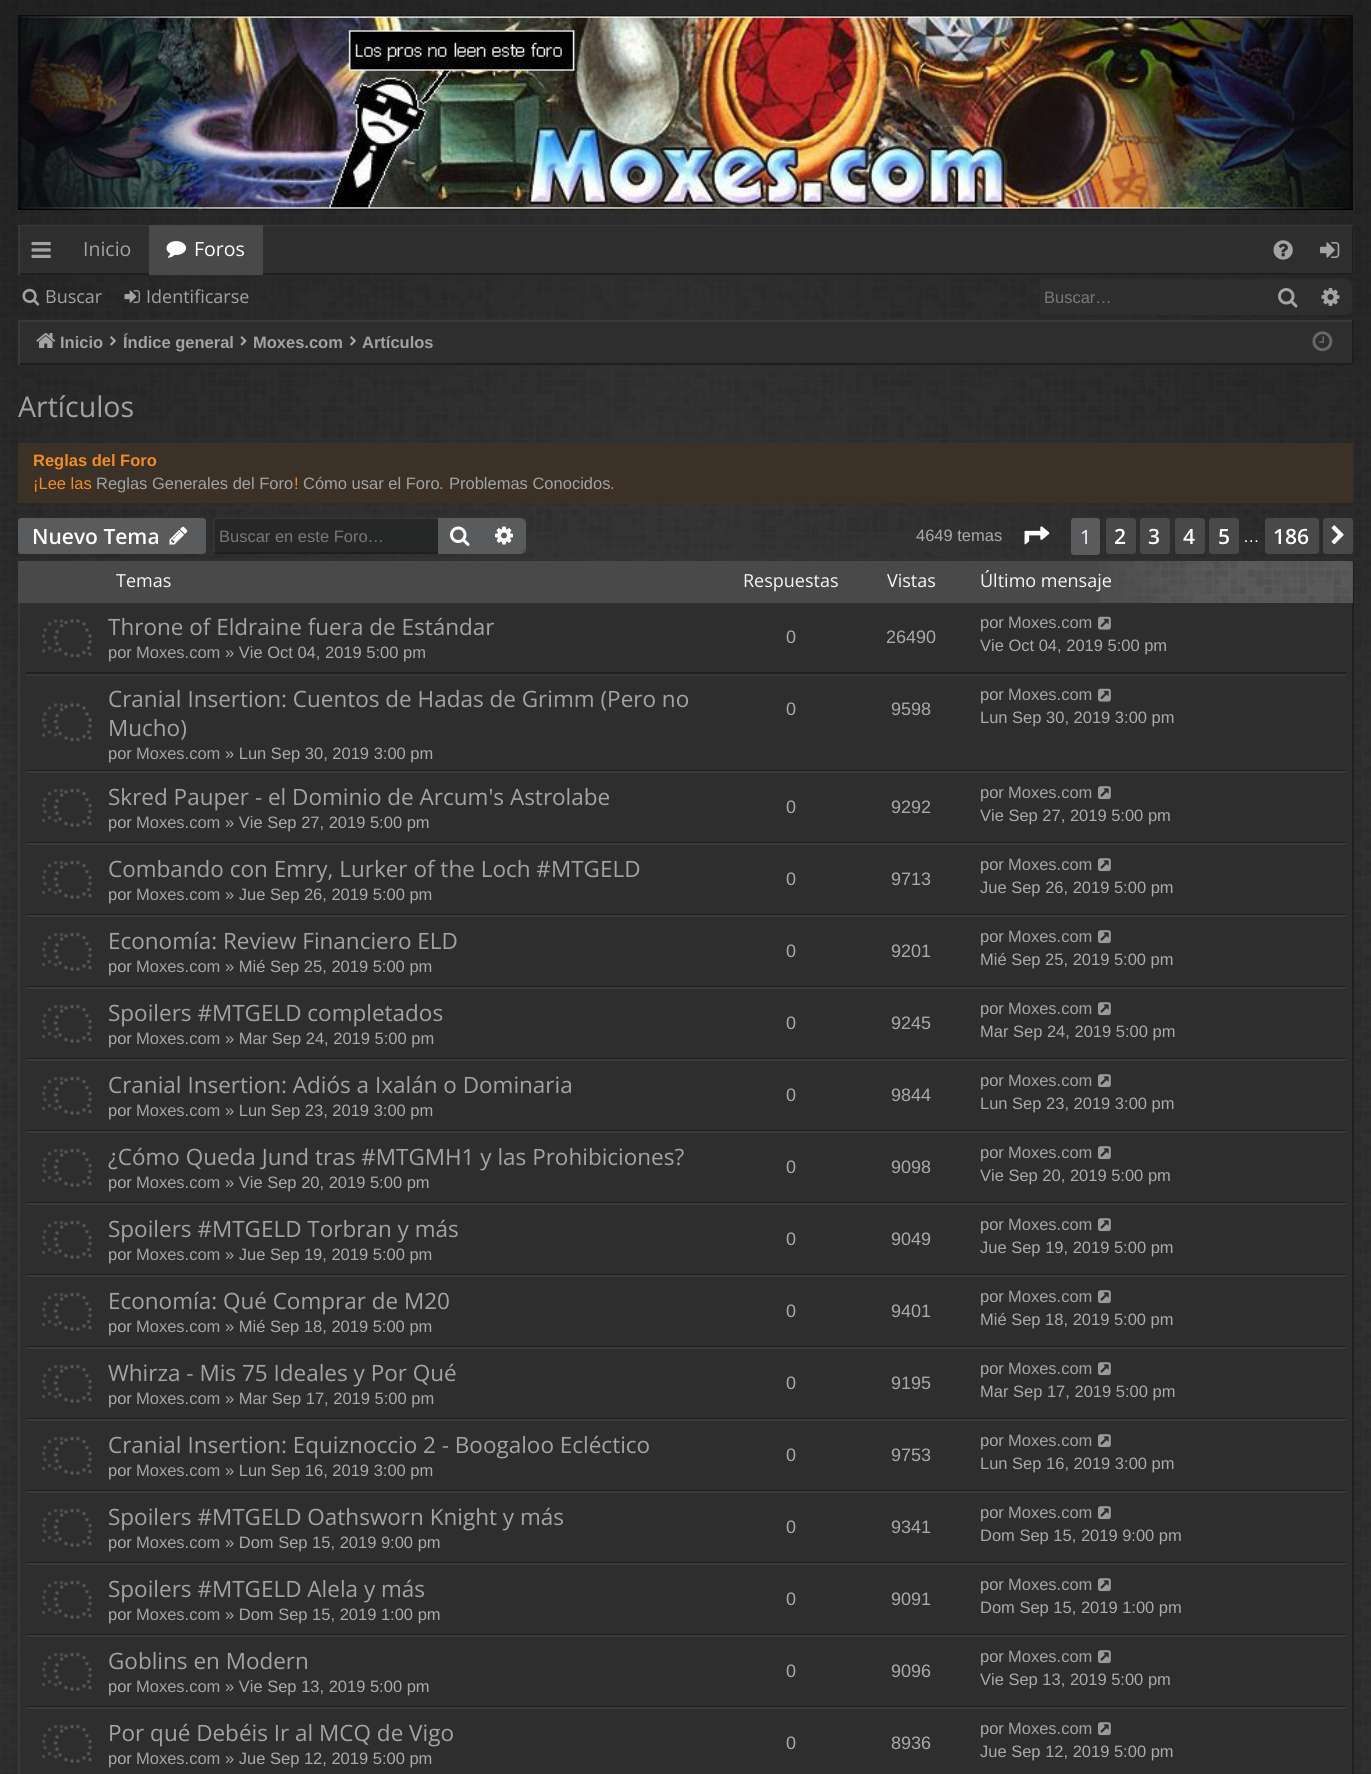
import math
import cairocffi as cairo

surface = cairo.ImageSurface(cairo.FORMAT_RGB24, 1371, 1774)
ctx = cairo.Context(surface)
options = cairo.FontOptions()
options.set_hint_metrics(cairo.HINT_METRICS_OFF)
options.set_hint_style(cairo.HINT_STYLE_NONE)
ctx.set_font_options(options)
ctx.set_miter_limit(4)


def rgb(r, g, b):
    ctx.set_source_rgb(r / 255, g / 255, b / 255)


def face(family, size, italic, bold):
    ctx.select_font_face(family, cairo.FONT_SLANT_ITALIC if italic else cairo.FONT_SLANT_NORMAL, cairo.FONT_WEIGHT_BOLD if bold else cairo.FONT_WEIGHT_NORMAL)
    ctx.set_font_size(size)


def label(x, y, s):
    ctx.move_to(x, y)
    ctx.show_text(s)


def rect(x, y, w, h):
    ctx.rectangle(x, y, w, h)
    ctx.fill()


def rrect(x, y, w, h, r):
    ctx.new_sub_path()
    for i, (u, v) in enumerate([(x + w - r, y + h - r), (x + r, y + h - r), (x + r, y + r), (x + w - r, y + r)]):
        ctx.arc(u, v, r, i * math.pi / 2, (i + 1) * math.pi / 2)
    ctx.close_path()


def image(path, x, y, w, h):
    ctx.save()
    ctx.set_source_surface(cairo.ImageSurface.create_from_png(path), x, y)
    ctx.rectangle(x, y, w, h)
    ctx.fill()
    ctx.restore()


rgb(39, 39, 39)
ctx.paint()
image('image0.png', 0, 0, 1371, 1774)
image('image1.png', 18, 15, 1335, 195)
rgb(46, 46, 47)
rect(20, 226, 1332, 47)
ctx.save()
ctx.rectangle(18, 225, 1335, 50)
ctx.clip()
rgb(31, 31, 32)
ctx.set_fill_rule(cairo.FILL_RULE_EVEN_ODD)
ctx.new_path()
ctx.move_to(-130, 76)
ctx.line_to(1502, 76)
ctx.line_to(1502, 423)
ctx.line_to(-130, 423)
ctx.close_path()
ctx.move_to(16, 224)
ctx.line_to(1352, 224)
ctx.line_to(1352, 273)
ctx.line_to(16, 273)
ctx.close_path()
ctx.fill()
rgb(56, 56, 57)
ctx.new_path()
ctx.move_to(-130, 76)
ctx.line_to(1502, 76)
ctx.line_to(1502, 423)
ctx.line_to(-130, 423)
ctx.close_path()
ctx.move_to(20, 226)
ctx.line_to(1354, 226)
ctx.line_to(1354, 276)
ctx.line_to(20, 276)
ctx.close_path()
ctx.fill()
ctx.restore()
image('image2.png', 31, 241, 20, 17)
face('Open Sans', 19.5, 0, 0)
rgb(162, 163, 164)
label(83, 256, 'Inicio')
rgb(73, 73, 74)
rect(149, 225, 114, 50)
image('image3.png', 166, 241, 20, 17)
rgb(255, 255, 255)
label(194, 256, 'Foros')
image('image4.png', 1273, 240, 20, 20)
image('image5.png', 1320, 241, 20, 17)
image('image6.png', 22, 288, 18, 18)
face('Open Sans', 18, 0, 0)
rgb(162, 163, 164)
label(45, 303, 'Buscar')
image('image7.png', 124, 290, 16, 13)
label(146, 303, 'Identificarse')
rgb(46, 46, 47)
rect(1040, 279, 225, 36)
face('Liberation Sans', 16.5, 0, 0)
rgb(119, 119, 119)
label(1044, 303, 'Buscar…')
rgb(46, 46, 47)
rect(1265, 279, 45, 36)
image('image8.png', 1278, 288, 20, 20)
ctx.new_path()
ctx.move_to(1310, 279)
ctx.line_to(1346, 279)
ctx.curve_to(1349.5, 279, 1352, 281.5, 1352, 285)
ctx.line_to(1352, 309)
ctx.curve_to(1352, 312.5, 1349.5, 315, 1346, 315)
ctx.line_to(1310, 315)
ctx.close_path()
ctx.fill()
image('image9.png', 1321, 288, 19, 18)
rect(20, 322, 1332, 41)
rgb(56, 56, 57)
rect(18, 320, 1335, 2)
rgb(31, 31, 32)
rect(1352, 320, 2, 45)
rect(18, 363, 1335, 2)
rgb(56, 56, 57)
rect(18, 320, 2, 45)
image('image10.png', 36, 333, 20, 15)
face('Liberation Sans', 16.5, 0, 1)
rgb(162, 163, 164)
label(60, 348, 'Inicio')
image('image11.png', 110, 336, 6, 10)
label(123, 348, 'Índice general')
image('image12.png', 240, 336, 7, 10)
label(253, 348, 'Moxes.com')
image('image11.png', 350, 336, 6, 10)
label(362, 348, 'Artículos')
image('image13.png', 1312, 331, 21, 21)
face('Open Sans', 28.5, 0, 0)
label(18, 417, 'Artículos')
rgb(59, 49, 39)
rect(18, 443, 1335, 60)
face('Liberation Sans', 16.5, 0, 1)
rgb(242, 140, 40)
label(33, 466, 'Reglas del Foro')
face('Liberation Sans', 16.5, 0, 0)
label(33, 489, '¡Lee las')
rgb(162, 163, 164)
label(96, 489, 'Reglas Generales del Foro')
rgb(242, 140, 40)
label(294, 489, '!')
rgb(162, 163, 164)
label(303, 489, 'Cómo usar el Foro')
rgb(242, 140, 40)
label(439, 489, '.')
rgb(162, 163, 164)
label(449, 489, 'Problemas Conocidos')
rgb(242, 140, 40)
label(610, 489, '.')
rgb(90, 91, 93)
rrect(19, 519, 186, 34, 2)
ctx.fill_preserve()
ctx.stroke()
face('Open Sans SemiBold', 21, 0, 0)
rgb(255, 255, 255)
label(32, 544, 'Nuevo Tema')
image('image14.png', 169, 526, 19, 19)
rgb(38, 39, 39)
ctx.new_path()
ctx.move_to(216.5, 519)
ctx.line_to(438, 519)
ctx.line_to(438, 552)
ctx.line_to(216.5, 552)
ctx.curve_to(215.5, 552, 215, 551.5, 215, 550.5)
ctx.line_to(215, 520.5)
ctx.curve_to(215, 519.5, 215.5, 519, 216.5, 519)
ctx.close_path()
ctx.fill()
rgb(56, 56, 57)
ctx.new_path()
ctx.move_to(216, 518)
ctx.line_to(438, 518)
ctx.line_to(438, 519)
ctx.line_to(215, 519)
ctx.line_to(214, 518)
ctx.close_path()
ctx.fill()
rgb(31, 31, 32)
ctx.new_path()
ctx.move_to(438, 554)
ctx.line_to(214, 554)
ctx.line_to(214, 553)
ctx.line_to(215, 552)
ctx.line_to(216, 552)
ctx.line_to(438, 552)
ctx.close_path()
ctx.fill()
rgb(56, 56, 57)
ctx.new_path()
ctx.move_to(215, 551.5)
ctx.line_to(214, 553)
ctx.curve_to(212.5, 550.5, 213, 547, 213, 545)
ctx.line_to(213, 520)
ctx.line_to(214, 518.5)
ctx.line_to(215, 519.5)
ctx.line_to(214, 520)
ctx.line_to(214, 550)
ctx.close_path()
ctx.fill()
face('Liberation Sans', 16.5, 0, 0)
rgb(119, 119, 119)
label(219, 542, 'Buscar en este Foro…')
rgb(90, 91, 93)
rect(438, 518, 45, 36)
image('image15.png', 450, 526, 20, 20)
ctx.new_path()
ctx.move_to(483, 519)
ctx.line_to(520, 519)
ctx.curve_to(523, 519, 525, 521, 525, 524)
ctx.line_to(525, 547)
ctx.curve_to(525, 550, 523, 552, 520, 552)
ctx.line_to(483, 552)
ctx.close_path()
ctx.fill()
ctx.set_fill_rule(cairo.FILL_RULE_EVEN_ODD)
ctx.new_path()
ctx.move_to(483, 518)
ctx.line_to(520, 518)
ctx.curve_to(524, 518, 526, 520, 526, 524)
ctx.line_to(526, 548)
ctx.curve_to(526, 551, 524, 554, 520, 554)
ctx.line_to(483, 554)
ctx.close_path()
ctx.move_to(483, 519)
ctx.line_to(520, 519)
ctx.curve_to(523, 519, 525, 521, 525, 524)
ctx.line_to(525, 548)
ctx.curve_to(525, 550, 523, 552, 520, 552)
ctx.line_to(483, 552)
ctx.close_path()
ctx.fill()
image('image16.png', 495, 526, 18, 19)
rgb(170, 170, 170)
label(916, 541, '4649 temas')
image('image17.png', 1024, 526, 26, 19)
rgb(90, 91, 93)
rrect(1072, 519, 27, 35, 2)
ctx.fill_preserve()
ctx.stroke()
face('Open Sans', 19.5, 0, 0)
rgb(255, 255, 255)
label(1080, 544, '1')
rgb(73, 73, 74)
rrect(1107, 519, 28, 34, 2)
ctx.fill_preserve()
ctx.stroke()
face('Open Sans SemiBold', 21, 0, 0)
rgb(255, 255, 255)
label(1114, 544, '2')
rgb(73, 73, 74)
rrect(1141, 519, 28, 34, 2)
ctx.fill_preserve()
ctx.stroke()
rgb(255, 255, 255)
label(1148, 544, '3')
rgb(73, 73, 74)
rrect(1176, 519, 28, 34, 2)
ctx.fill_preserve()
ctx.stroke()
rgb(255, 255, 255)
label(1183, 544, '4')
rgb(73, 73, 74)
rrect(1210, 519, 28, 34, 2)
ctx.fill_preserve()
ctx.stroke()
rgb(255, 255, 255)
label(1218, 544, '5')
face('Liberation Sans', 16.5, 0, 0)
label(1243, 542, '…')
rgb(73, 73, 74)
rrect(1266, 519, 52, 34, 2)
ctx.fill_preserve()
ctx.stroke()
face('Open Sans SemiBold', 21, 0, 0)
rgb(255, 255, 255)
label(1273, 544, '186')
rgb(73, 73, 74)
rrect(1324, 519, 28, 34, 2)
ctx.fill_preserve()
ctx.stroke()
image('image18.png', 1331, 525, 13, 20)
rgb(46, 46, 47)
rect(20, 603, 1332, 1171)
rgb(31, 31, 32)
rect(1352, 561, 2, 1213)
rgb(56, 56, 57)
rect(18, 603, 2, 1171)
rgb(73, 73, 74)
rect(18, 561, 1335, 42)
image('image19.png', 1099, 561, 254, 42)
face('Open Sans', 18, 0, 0)
rgb(247, 247, 247)
label(116, 587, 'Temas')
label(743, 587, 'Respuestas')
label(887, 587, 'Vistas')
label(980, 587, 'Último mensaje')
rgb(31, 31, 32)
rect(26, 672, 1320, 2)
image('image20.png', 42, 619, 50, 39)
face('Open Sans', 22.5, 0, 0)
rgb(162, 163, 164)
label(108, 635, 'Throne of Eldraine fuera de Estándar')
face('Liberation Sans', 16.5, 0, 0)
rgb(170, 170, 170)
label(108, 658, 'por')
rgb(162, 163, 164)
label(136, 658, 'Moxes.com')
rgb(170, 170, 170)
label(225, 658, '» Vie Oct 04, 2019 5:00 pm')
face('Liberation Sans', 18, 0, 0)
label(786, 643, '0')
label(886, 643, '26490')
face('Liberation Sans', 16.5, 0, 0)
label(980, 628, 'por')
rgb(162, 163, 164)
label(1008, 628, 'Moxes.com')
image('image21.png', 1098, 616, 13, 14)
rgb(170, 170, 170)
label(980, 651, 'Vie Oct 04, 2019 5:00 pm')
rgb(56, 56, 57)
rect(26, 674, 1320, 2)
rgb(31, 31, 32)
rect(26, 770, 1320, 1)
image('image20.png', 42, 703, 50, 39)
face('Open Sans', 22.5, 0, 0)
rgb(162, 163, 164)
label(108, 707, 'Cranial Insertion: Cuentos de Hadas de Grimm (Pero no')
label(108, 736, 'Mucho)')
face('Liberation Sans', 16.5, 0, 0)
rgb(170, 170, 170)
label(108, 759, 'por')
rgb(162, 163, 164)
label(136, 759, 'Moxes.com')
rgb(170, 170, 170)
label(225, 759, '» Lun Sep 30, 2019 3:00 pm')
face('Liberation Sans', 18, 0, 0)
label(786, 715, '0')
label(891, 715, '9598')
face('Liberation Sans', 16.5, 0, 0)
label(980, 700, 'por')
rgb(162, 163, 164)
label(1008, 700, 'Moxes.com')
image('image21.png', 1098, 688, 13, 14)
rgb(170, 170, 170)
label(980, 723, 'Lun Sep 30, 2019 3:00 pm')
rgb(56, 56, 57)
rect(26, 771, 1320, 2)
rgb(31, 31, 32)
rect(26, 842, 1320, 1)
image('image22.png', 42, 788, 50, 39)
face('Open Sans', 22.5, 0, 0)
rgb(162, 163, 164)
label(108, 805, 'Skred Pauper - el Dominio de Arcum\'s Astrolabe')
face('Liberation Sans', 16.5, 0, 0)
rgb(170, 170, 170)
label(108, 828, 'por')
rgb(162, 163, 164)
label(136, 828, 'Moxes.com')
rgb(170, 170, 170)
label(225, 828, '» Vie Sep 27, 2019 5:00 pm')
face('Liberation Sans', 18, 0, 0)
label(786, 813, '0')
label(891, 813, '9292')
face('Liberation Sans', 16.5, 0, 0)
label(980, 798, 'por')
rgb(162, 163, 164)
label(1008, 798, 'Moxes.com')
image('image23.png', 1098, 786, 13, 14)
rgb(170, 170, 170)
label(980, 821, 'Vie Sep 27, 2019 5:00 pm')
rgb(56, 56, 57)
rect(26, 843, 1320, 2)
rgb(31, 31, 32)
rect(26, 914, 1320, 1)
image('image22.png', 42, 860, 50, 39)
face('Open Sans', 22.5, 0, 0)
rgb(162, 163, 164)
label(108, 877, 'Combando con Emry, Lurker of the Loch #MTGELD')
face('Liberation Sans', 16.5, 0, 0)
rgb(170, 170, 170)
label(108, 900, 'por')
rgb(162, 163, 164)
label(136, 900, 'Moxes.com')
rgb(170, 170, 170)
label(225, 900, '» Jue Sep 26, 2019 5:00 pm')
face('Liberation Sans', 18, 0, 0)
label(786, 885, '0')
label(891, 885, '9713')
face('Liberation Sans', 16.5, 0, 0)
label(980, 870, 'por')
rgb(162, 163, 164)
label(1008, 870, 'Moxes.com')
image('image23.png', 1098, 858, 13, 14)
rgb(170, 170, 170)
label(980, 893, 'Jue Sep 26, 2019 5:00 pm')
rgb(56, 56, 57)
rect(26, 915, 1320, 2)
rgb(31, 31, 32)
rect(26, 986, 1320, 1)
image('image22.png', 42, 932, 50, 39)
face('Open Sans', 22.5, 0, 0)
rgb(162, 163, 164)
label(108, 949, 'Economía: Review Financiero ELD')
face('Liberation Sans', 16.5, 0, 0)
rgb(170, 170, 170)
label(108, 972, 'por')
rgb(162, 163, 164)
label(136, 972, 'Moxes.com')
rgb(170, 170, 170)
label(225, 972, '» Mié Sep 25, 2019 5:00 pm')
face('Liberation Sans', 18, 0, 0)
label(786, 957, '0')
label(891, 957, '9201')
face('Liberation Sans', 16.5, 0, 0)
label(980, 942, 'por')
rgb(162, 163, 164)
label(1008, 942, 'Moxes.com')
image('image23.png', 1098, 930, 13, 14)
rgb(170, 170, 170)
label(980, 965, 'Mié Sep 25, 2019 5:00 pm')
rgb(56, 56, 57)
rect(26, 987, 1320, 2)
rgb(31, 31, 32)
rect(26, 1058, 1320, 1)
image('image22.png', 42, 1004, 50, 39)
face('Open Sans', 22.5, 0, 0)
rgb(162, 163, 164)
label(108, 1021, 'Spoilers #MTGELD completados')
face('Liberation Sans', 16.5, 0, 0)
rgb(170, 170, 170)
label(108, 1044, 'por')
rgb(162, 163, 164)
label(136, 1044, 'Moxes.com')
rgb(170, 170, 170)
label(225, 1044, '» Mar Sep 24, 2019 5:00 pm')
face('Liberation Sans', 18, 0, 0)
label(786, 1029, '0')
label(891, 1029, '9245')
face('Liberation Sans', 16.5, 0, 0)
label(980, 1014, 'por')
rgb(162, 163, 164)
label(1008, 1014, 'Moxes.com')
image('image23.png', 1098, 1002, 13, 14)
rgb(170, 170, 170)
label(980, 1037, 'Mar Sep 24, 2019 5:00 pm')
rgb(56, 56, 57)
rect(26, 1059, 1320, 2)
rgb(31, 31, 32)
rect(26, 1130, 1320, 1)
image('image22.png', 42, 1076, 50, 39)
face('Open Sans', 22.5, 0, 0)
rgb(162, 163, 164)
label(108, 1093, 'Cranial Insertion: Adiós a Ixalán o Dominaria')
face('Liberation Sans', 16.5, 0, 0)
rgb(170, 170, 170)
label(108, 1116, 'por')
rgb(162, 163, 164)
label(136, 1116, 'Moxes.com')
rgb(170, 170, 170)
label(225, 1116, '» Lun Sep 23, 2019 3:00 pm')
face('Liberation Sans', 18, 0, 0)
label(786, 1101, '0')
label(891, 1101, '9844')
face('Liberation Sans', 16.5, 0, 0)
label(980, 1086, 'por')
rgb(162, 163, 164)
label(1008, 1086, 'Moxes.com')
image('image23.png', 1098, 1074, 13, 14)
rgb(170, 170, 170)
label(980, 1109, 'Lun Sep 23, 2019 3:00 pm')
rgb(56, 56, 57)
rect(26, 1131, 1320, 2)
rgb(31, 31, 32)
rect(26, 1202, 1320, 1)
image('image22.png', 42, 1148, 50, 39)
face('Open Sans', 22.5, 0, 0)
rgb(162, 163, 164)
label(108, 1165, '¿Cómo Queda Jund tras #MTGMH1 y las Prohibiciones?')
face('Liberation Sans', 16.5, 0, 0)
rgb(170, 170, 170)
label(108, 1188, 'por')
rgb(162, 163, 164)
label(136, 1188, 'Moxes.com')
rgb(170, 170, 170)
label(225, 1188, '» Vie Sep 20, 2019 5:00 pm')
face('Liberation Sans', 18, 0, 0)
label(786, 1173, '0')
label(891, 1173, '9098')
face('Liberation Sans', 16.5, 0, 0)
label(980, 1158, 'por')
rgb(162, 163, 164)
label(1008, 1158, 'Moxes.com')
image('image23.png', 1098, 1146, 13, 14)
rgb(170, 170, 170)
label(980, 1181, 'Vie Sep 20, 2019 5:00 pm')
rgb(56, 56, 57)
rect(26, 1203, 1320, 2)
rgb(31, 31, 32)
rect(26, 1274, 1320, 1)
image('image22.png', 42, 1220, 50, 39)
face('Open Sans', 22.5, 0, 0)
rgb(162, 163, 164)
label(108, 1237, 'Spoilers #MTGELD Torbran y más')
face('Liberation Sans', 16.5, 0, 0)
rgb(170, 170, 170)
label(108, 1260, 'por')
rgb(162, 163, 164)
label(136, 1260, 'Moxes.com')
rgb(170, 170, 170)
label(225, 1260, '» Jue Sep 19, 2019 5:00 pm')
face('Liberation Sans', 18, 0, 0)
label(786, 1245, '0')
label(891, 1245, '9049')
face('Liberation Sans', 16.5, 0, 0)
label(980, 1230, 'por')
rgb(162, 163, 164)
label(1008, 1230, 'Moxes.com')
image('image23.png', 1098, 1218, 13, 14)
rgb(170, 170, 170)
label(980, 1253, 'Jue Sep 19, 2019 5:00 pm')
rgb(56, 56, 57)
rect(26, 1275, 1320, 2)
rgb(31, 31, 32)
rect(26, 1346, 1320, 1)
image('image22.png', 42, 1292, 50, 39)
face('Open Sans', 22.5, 0, 0)
rgb(162, 163, 164)
label(108, 1309, 'Economía: Qué Comprar de M20')
face('Liberation Sans', 16.5, 0, 0)
rgb(170, 170, 170)
label(108, 1332, 'por')
rgb(162, 163, 164)
label(136, 1332, 'Moxes.com')
rgb(170, 170, 170)
label(225, 1332, '» Mié Sep 18, 2019 5:00 pm')
face('Liberation Sans', 18, 0, 0)
label(786, 1317, '0')
label(891, 1317, '9401')
face('Liberation Sans', 16.5, 0, 0)
label(980, 1302, 'por')
rgb(162, 163, 164)
label(1008, 1302, 'Moxes.com')
image('image23.png', 1098, 1290, 13, 14)
rgb(170, 170, 170)
label(980, 1325, 'Mié Sep 18, 2019 5:00 pm')
rgb(56, 56, 57)
rect(26, 1347, 1320, 2)
rgb(31, 31, 32)
rect(26, 1418, 1320, 1)
image('image22.png', 42, 1364, 50, 39)
face('Open Sans', 22.5, 0, 0)
rgb(162, 163, 164)
label(108, 1381, 'Whirza - Mis 75 Ideales y Por Qué')
face('Liberation Sans', 16.5, 0, 0)
rgb(170, 170, 170)
label(108, 1404, 'por')
rgb(162, 163, 164)
label(136, 1404, 'Moxes.com')
rgb(170, 170, 170)
label(225, 1404, '» Mar Sep 17, 2019 5:00 pm')
face('Liberation Sans', 18, 0, 0)
label(786, 1389, '0')
label(891, 1389, '9195')
face('Liberation Sans', 16.5, 0, 0)
label(980, 1374, 'por')
rgb(162, 163, 164)
label(1008, 1374, 'Moxes.com')
image('image23.png', 1098, 1362, 13, 14)
rgb(170, 170, 170)
label(980, 1397, 'Mar Sep 17, 2019 5:00 pm')
rgb(56, 56, 57)
rect(26, 1419, 1320, 2)
rgb(31, 31, 32)
rect(26, 1490, 1320, 1)
image('image22.png', 42, 1436, 50, 39)
face('Open Sans', 22.5, 0, 0)
rgb(162, 163, 164)
label(108, 1453, 'Cranial Insertion: Equiznoccio 2 - Boogaloo Ecléctico')
face('Liberation Sans', 16.5, 0, 0)
rgb(170, 170, 170)
label(108, 1476, 'por')
rgb(162, 163, 164)
label(136, 1476, 'Moxes.com')
rgb(170, 170, 170)
label(225, 1476, '» Lun Sep 16, 2019 3:00 pm')
face('Liberation Sans', 18, 0, 0)
label(786, 1461, '0')
label(891, 1461, '9753')
face('Liberation Sans', 16.5, 0, 0)
label(980, 1446, 'por')
rgb(162, 163, 164)
label(1008, 1446, 'Moxes.com')
image('image23.png', 1098, 1434, 13, 14)
rgb(170, 170, 170)
label(980, 1469, 'Lun Sep 16, 2019 3:00 pm')
rgb(56, 56, 57)
rect(26, 1491, 1320, 2)
rgb(31, 31, 32)
rect(26, 1562, 1320, 1)
image('image22.png', 42, 1508, 50, 39)
face('Open Sans', 22.5, 0, 0)
rgb(162, 163, 164)
label(108, 1525, 'Spoilers #MTGELD Oathsworn Knight y más')
face('Liberation Sans', 16.5, 0, 0)
rgb(170, 170, 170)
label(108, 1548, 'por')
rgb(162, 163, 164)
label(136, 1548, 'Moxes.com')
rgb(170, 170, 170)
label(225, 1548, '» Dom Sep 15, 2019 9:00 pm')
face('Liberation Sans', 18, 0, 0)
label(786, 1533, '0')
label(891, 1533, '9341')
face('Liberation Sans', 16.5, 0, 0)
label(980, 1518, 'por')
rgb(162, 163, 164)
label(1008, 1518, 'Moxes.com')
image('image23.png', 1098, 1506, 13, 14)
rgb(170, 170, 170)
label(980, 1541, 'Dom Sep 15, 2019 9:00 pm')
rgb(56, 56, 57)
rect(26, 1563, 1320, 2)
rgb(31, 31, 32)
rect(26, 1634, 1320, 1)
image('image22.png', 42, 1580, 50, 39)
face('Open Sans', 22.5, 0, 0)
rgb(162, 163, 164)
label(108, 1597, 'Spoilers #MTGELD Alela y más')
face('Liberation Sans', 16.5, 0, 0)
rgb(170, 170, 170)
label(108, 1620, 'por')
rgb(162, 163, 164)
label(136, 1620, 'Moxes.com')
rgb(170, 170, 170)
label(225, 1620, '» Dom Sep 15, 2019 1:00 pm')
face('Liberation Sans', 18, 0, 0)
label(786, 1605, '0')
label(891, 1605, '9091')
face('Liberation Sans', 16.5, 0, 0)
label(980, 1590, 'por')
rgb(162, 163, 164)
label(1008, 1590, 'Moxes.com')
image('image23.png', 1098, 1578, 13, 14)
rgb(170, 170, 170)
label(980, 1613, 'Dom Sep 15, 2019 1:00 pm')
rgb(56, 56, 57)
rect(26, 1635, 1320, 2)
rgb(31, 31, 32)
rect(26, 1706, 1320, 1)
image('image22.png', 42, 1652, 50, 39)
face('Open Sans', 22.5, 0, 0)
rgb(162, 163, 164)
label(108, 1669, 'Goblins en Modern')
face('Liberation Sans', 16.5, 0, 0)
rgb(170, 170, 170)
label(108, 1692, 'por')
rgb(162, 163, 164)
label(136, 1692, 'Moxes.com')
rgb(170, 170, 170)
label(225, 1692, '» Vie Sep 13, 2019 5:00 pm')
face('Liberation Sans', 18, 0, 0)
label(786, 1677, '0')
label(891, 1677, '9096')
face('Liberation Sans', 16.5, 0, 0)
label(980, 1662, 'por')
rgb(162, 163, 164)
label(1008, 1662, 'Moxes.com')
image('image23.png', 1098, 1650, 13, 14)
rgb(170, 170, 170)
label(980, 1685, 'Vie Sep 13, 2019 5:00 pm')
rgb(56, 56, 57)
rect(26, 1707, 1320, 2)
image('image22.png', 42, 1724, 50, 39)
face('Open Sans', 22.5, 0, 0)
rgb(162, 163, 164)
label(108, 1741, 'Por qué Debéis Ir al MCQ de Vigo')
face('Liberation Sans', 16.5, 0, 0)
rgb(170, 170, 170)
label(108, 1764, 'por')
rgb(162, 163, 164)
label(136, 1764, 'Moxes.com')
rgb(170, 170, 170)
label(225, 1764, '» Jue Sep 12, 2019 5:00 pm')
face('Liberation Sans', 18, 0, 0)
label(786, 1749, '0')
label(891, 1749, '8936')
face('Liberation Sans', 16.5, 0, 0)
label(980, 1734, 'por')
rgb(162, 163, 164)
label(1008, 1734, 'Moxes.com')
image('image23.png', 1098, 1722, 13, 14)
rgb(170, 170, 170)
label(980, 1757, 'Jue Sep 12, 2019 5:00 pm')
surface.write_to_png('render.png')
